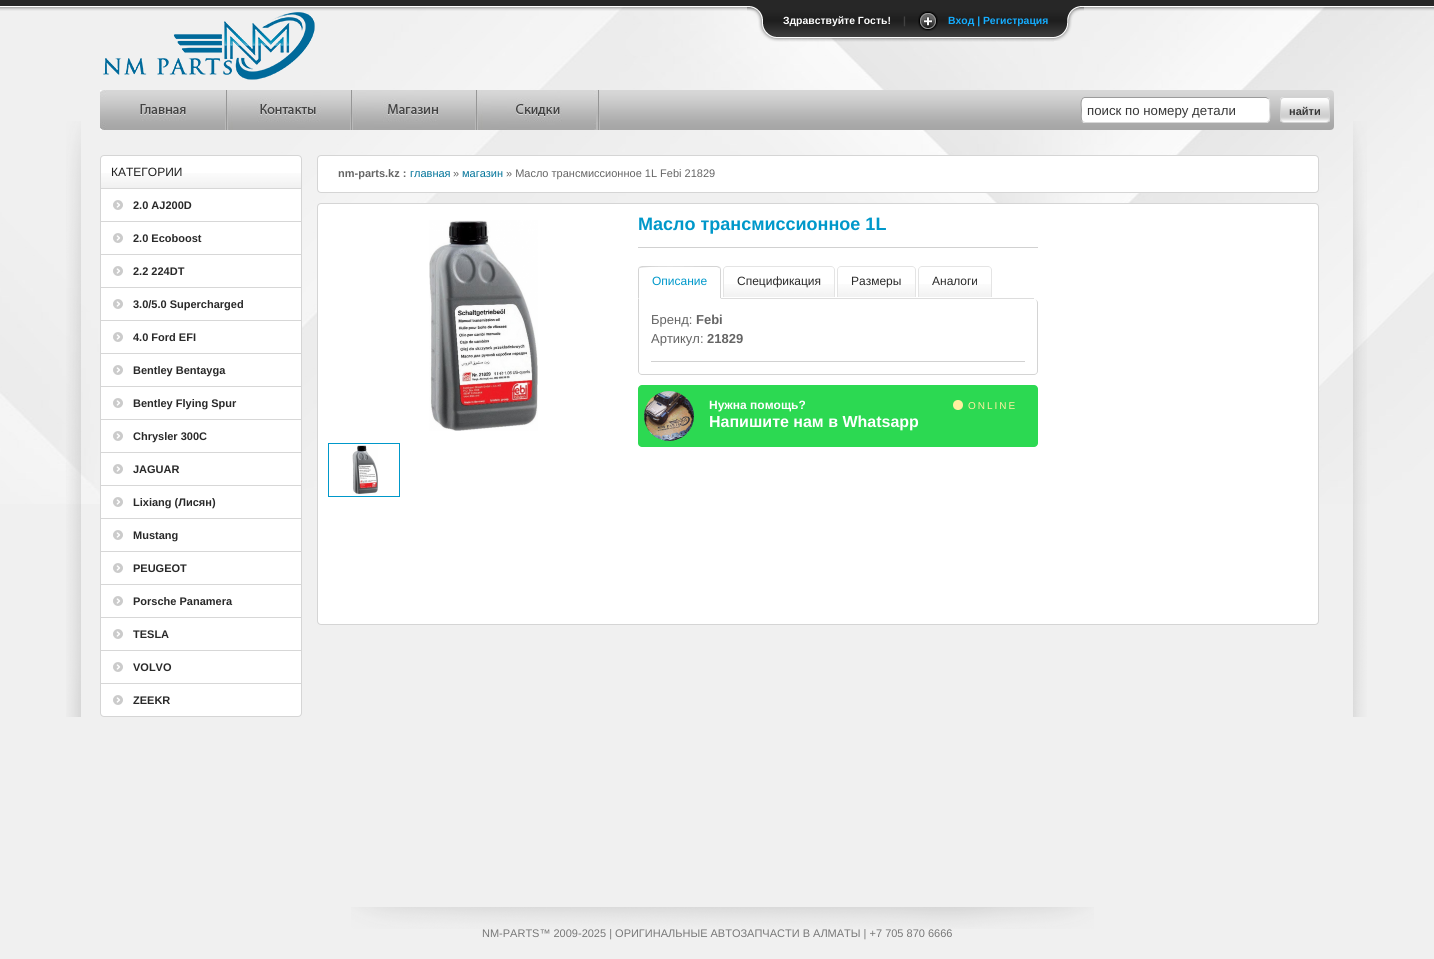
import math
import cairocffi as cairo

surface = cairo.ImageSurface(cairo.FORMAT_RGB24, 1434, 959)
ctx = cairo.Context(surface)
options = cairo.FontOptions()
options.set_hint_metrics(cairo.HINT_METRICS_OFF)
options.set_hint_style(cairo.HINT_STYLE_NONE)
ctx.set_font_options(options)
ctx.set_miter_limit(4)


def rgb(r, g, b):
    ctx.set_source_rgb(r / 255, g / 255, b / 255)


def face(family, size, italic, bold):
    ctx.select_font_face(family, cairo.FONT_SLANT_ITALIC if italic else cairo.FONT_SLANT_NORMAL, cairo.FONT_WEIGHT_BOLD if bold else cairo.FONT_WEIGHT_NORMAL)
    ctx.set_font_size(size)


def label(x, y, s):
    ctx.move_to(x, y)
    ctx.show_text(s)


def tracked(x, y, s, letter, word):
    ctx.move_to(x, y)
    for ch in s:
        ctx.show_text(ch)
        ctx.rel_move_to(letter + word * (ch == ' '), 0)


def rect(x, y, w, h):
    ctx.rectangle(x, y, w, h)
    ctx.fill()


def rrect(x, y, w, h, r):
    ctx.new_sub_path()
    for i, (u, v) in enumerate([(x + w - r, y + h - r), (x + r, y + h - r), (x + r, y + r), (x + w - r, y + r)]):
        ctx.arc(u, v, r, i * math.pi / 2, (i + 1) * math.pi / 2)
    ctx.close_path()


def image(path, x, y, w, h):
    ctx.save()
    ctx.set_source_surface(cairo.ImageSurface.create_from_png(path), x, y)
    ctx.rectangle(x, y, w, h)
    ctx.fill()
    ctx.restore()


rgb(240, 240, 240)
ctx.paint()
image('image0.png', 0, 7, 1434, 497)
image('image1.png', 0, 0, 1434, 11)
image('image2.png', 747, 6, 30, 36)
image('image3.png', 777, 6, 120, 36)
face('Liberation Sans', 10.4, 0, 1)
rgb(255, 255, 255)
label(783, 24, 'Здравствуйте Гость!')
image('image4.png', 897, 6, 15, 36)
rgb(65, 65, 65)
label(903, 24, '|')
image('image5.png', 912, 6, 142, 36)
image('image6.png', 918, 11, 20, 20)
rgb(21, 173, 255)
label(948, 24, 'Вход | Регистрация')
image('image7.png', 1054, 6, 30, 35)
image('image8.png', 103, 12, 212, 68)
image('image9.png', 66, 121, 15, 596)
image('image10.png', 1353, 121, 14, 596)
image('image11.png', 106, 90, 1228, 40)
image('image12.png', 140, 104, 46, 17)
image('image13.png', 100, 90, 6, 40)
image('image14.png', 225, 90, 96, 40)
image('image15.png', 350, 90, 88, 40)
image('image16.png', 475, 90, 87, 40)
image('image17.png', 594, 90, 6, 40)
rgb(255, 255, 255)
rrect(1081, 97, 189, 26, 4)
ctx.fill()
ctx.new_path()
ctx.move_to(1268.5, 98.5)
ctx.curve_to(1270.5, 100.5, 1269.5, 107.5, 1269.5, 110)
ctx.curve_to(1269.5, 113, 1271.5, 121.5, 1266.5, 122.5)
ctx.line_to(1085, 122.5)
ctx.line_to(1082.5, 121.5)
rgb(216, 216, 216)
ctx.set_line_width(1)
ctx.stroke()
ctx.new_path()
ctx.move_to(1082.5, 121.5)
ctx.curve_to(1080.5, 119.5, 1081.5, 112.5, 1081.5, 110)
ctx.curve_to(1081.5, 107, 1079.5, 98.5, 1084.5, 97.5)
ctx.line_to(1266, 97.5)
ctx.line_to(1268.5, 98.5)
rgb(155, 155, 155)
ctx.stroke()
face('Liberation Sans', 13.25, 0, 0)
rgb(56, 56, 56)
label(1087, 115, 'поиск по номеру детали')
image('image18.png', 1280, 97, 50, 25)
rrect(1280.5, 97.5, 49, 25, 3.5)
rgb(209, 209, 209)
ctx.stroke()
face('Liberation Sans', 11, 0, 1)
rgb(56, 56, 56)
label(1289, 115, 'найти')
rgb(255, 255, 255)
rrect(100.5, 155.5, 201, 561, 3.5)
ctx.fill_preserve()
rgb(213, 213, 213)
ctx.stroke()
image('image19.png', 101, 173, 200, 15)
face('Liberation Sans', 12, 0, 0)
rgb(31, 31, 31)
label(111, 176, 'КАТЕГОРИИ')
rgb(215, 215, 215)
rect(101, 188, 200, 1)
image('image20.png', 113, 200, 10, 10)
face('Liberation Sans', 11, 0, 1)
rgb(41, 41, 41)
label(133, 209, '2.0 AJ200D')
rgb(215, 215, 215)
rect(101, 221, 200, 1)
image('image20.png', 113, 233, 10, 10)
rgb(41, 41, 41)
label(133, 242, '2.0 Ecoboost')
rgb(215, 215, 215)
rect(101, 254, 200, 1)
image('image20.png', 113, 266, 10, 10)
rgb(41, 41, 41)
label(133, 275, '2.2 224DT')
rgb(215, 215, 215)
rect(101, 287, 200, 1)
image('image20.png', 113, 299, 10, 10)
rgb(41, 41, 41)
label(133, 308, '3.0/5.0 Supercharged')
rgb(215, 215, 215)
rect(101, 320, 200, 1)
image('image20.png', 113, 332, 10, 10)
rgb(41, 41, 41)
label(133, 341, '4.0 Ford EFI')
rgb(215, 215, 215)
rect(101, 353, 200, 1)
image('image20.png', 113, 365, 10, 10)
rgb(41, 41, 41)
label(133, 374, 'Bentley Bentayga')
rgb(215, 215, 215)
rect(101, 386, 200, 1)
image('image20.png', 113, 398, 10, 10)
rgb(41, 41, 41)
label(133, 407, 'Bentley Flying Spur')
rgb(215, 215, 215)
rect(101, 419, 200, 1)
image('image20.png', 113, 431, 10, 10)
rgb(41, 41, 41)
label(133, 440, 'Chrysler 300C')
rgb(215, 215, 215)
rect(101, 452, 200, 1)
image('image20.png', 113, 464, 10, 10)
rgb(41, 41, 41)
label(133, 473, 'JAGUAR')
rgb(215, 215, 215)
rect(101, 485, 200, 1)
image('image20.png', 113, 497, 10, 10)
rgb(41, 41, 41)
label(133, 506, 'Lixiang (Лисян)')
rgb(215, 215, 215)
rect(101, 518, 200, 1)
image('image20.png', 113, 530, 10, 10)
rgb(41, 41, 41)
label(133, 539, 'Mustang')
rgb(215, 215, 215)
rect(101, 551, 200, 1)
image('image20.png', 113, 563, 10, 10)
rgb(41, 41, 41)
label(133, 572, 'PEUGEOT')
rgb(215, 215, 215)
rect(101, 584, 200, 1)
image('image20.png', 113, 596, 10, 10)
rgb(41, 41, 41)
label(133, 605, 'Porsche Panamera')
rgb(215, 215, 215)
rect(101, 617, 200, 1)
image('image20.png', 113, 629, 10, 10)
rgb(41, 41, 41)
label(133, 638, 'TESLA')
rgb(215, 215, 215)
rect(101, 650, 200, 1)
image('image20.png', 113, 662, 10, 10)
rgb(41, 41, 41)
label(133, 671, 'VOLVO')
rgb(215, 215, 215)
rect(101, 683, 200, 1)
image('image20.png', 113, 695, 10, 10)
rgb(41, 41, 41)
label(133, 704, 'ZEEKR')
rgb(255, 255, 255)
rrect(317.5, 155.5, 1001, 37, 3.5)
ctx.fill_preserve()
rgb(213, 213, 213)
ctx.stroke()
rgb(101, 101, 101)
label(338, 177, 'nm-parts.kz :')
face('Liberation Sans', 11, 0, 0)
rgb(0, 115, 153)
label(410, 177, 'главная')
rgb(101, 101, 101)
label(453, 177, '»')
rgb(0, 115, 153)
label(462, 177, 'магазин')
rgb(101, 101, 101)
label(506, 177, '» Масло трансмиссионное 1L Febi 21829')
rgb(255, 255, 255)
rrect(317.5, 203.5, 1001, 421, 3.5)
ctx.fill_preserve()
rgb(213, 213, 213)
ctx.stroke()
image('image21.png', 429, 220, 109, 211)
ctx.rectangle(328.5, 443.5, 71, 53)
rgb(0, 152, 202)
ctx.stroke()
image('image22.png', 352, 445, 26, 50)
rgb(209, 209, 209)
rect(638, 247, 400, 1)
face('Liberation Sans', 18, 0, 1)
rgb(0, 152, 202)
label(638, 230, 'Масло трансмиссионное 1L')
rgb(221, 221, 221)
rect(721, 298, 313, 1)
rgb(212, 212, 212)
ctx.new_path()
ctx.move_to(642, 266)
ctx.line_to(639, 267)
ctx.line_to(640, 268)
ctx.curve_to(642, 266, 697, 267, 704, 267)
ctx.line_to(717, 267)
ctx.line_to(719, 268)
ctx.line_to(720, 267)
ctx.line_to(717, 266)
ctx.close_path()
ctx.fill()
ctx.new_path()
ctx.move_to(721, 299)
ctx.line_to(721, 270)
ctx.curve_to(721, 269, 720.5, 268, 720, 267)
ctx.line_to(719, 268)
ctx.curve_to(720, 268, 720, 269, 720, 270)
ctx.line_to(720, 298)
ctx.close_path()
ctx.fill()
rgb(255, 255, 255)
ctx.new_path()
ctx.move_to(721, 299)
ctx.line_to(720, 298)
ctx.line_to(639, 298)
ctx.line_to(638, 299)
ctx.close_path()
ctx.fill()
rgb(212, 212, 212)
ctx.new_path()
ctx.move_to(638, 299)
ctx.line_to(639, 298)
ctx.line_to(639, 270)
ctx.curve_to(639, 269, 639, 268, 640, 268)
ctx.line_to(639, 267)
ctx.curve_to(638.5, 268, 638, 269, 638, 270)
ctx.close_path()
ctx.fill()
face('Liberation Sans', 12, 0, 0)
rgb(0, 152, 202)
label(652, 285, 'Описание')
image('image23.png', 724, 284, 110, 13)
rgb(228, 228, 228)
ctx.set_fill_rule(cairo.FILL_RULE_EVEN_ODD)
ctx.new_path()
ctx.move_to(727, 266)
ctx.line_to(831, 266)
ctx.curve_to(833, 266, 835, 268, 835, 270)
ctx.line_to(835, 297)
ctx.line_to(723, 297)
ctx.line_to(723, 270)
ctx.curve_to(723, 268, 725, 266, 727, 266)
ctx.close_path()
ctx.move_to(727, 267)
ctx.line_to(831, 267)
ctx.curve_to(833, 267, 834, 268, 834, 270)
ctx.line_to(834, 297)
ctx.line_to(724, 297)
ctx.line_to(724, 270)
ctx.curve_to(724, 268, 725, 267, 727, 267)
ctx.close_path()
ctx.fill()
rgb(41, 41, 41)
label(737, 285, 'Спецификация')
image('image24.png', 838, 284, 77, 13)
rgb(228, 228, 228)
ctx.new_path()
ctx.move_to(841, 266)
ctx.line_to(912, 266)
ctx.curve_to(914, 266, 916, 268, 916, 270)
ctx.line_to(916, 297)
ctx.line_to(837, 297)
ctx.line_to(837, 270)
ctx.curve_to(837, 268, 839, 266, 841, 266)
ctx.close_path()
ctx.move_to(841, 267)
ctx.line_to(912, 267)
ctx.curve_to(914, 267, 915, 268, 915, 270)
ctx.line_to(915, 297)
ctx.line_to(838, 297)
ctx.line_to(838, 270)
ctx.curve_to(838, 268, 839, 267, 841, 267)
ctx.close_path()
ctx.fill()
rgb(41, 41, 41)
label(851, 285, 'Размеры')
image('image25.png', 919, 284, 72, 13)
rgb(228, 228, 228)
ctx.new_path()
ctx.move_to(922, 266)
ctx.line_to(988, 266)
ctx.curve_to(990, 266, 992, 268, 992, 270)
ctx.line_to(992, 297)
ctx.line_to(918, 297)
ctx.line_to(918, 270)
ctx.curve_to(918, 268, 920, 266, 922, 266)
ctx.close_path()
ctx.move_to(922, 267)
ctx.line_to(988, 267)
ctx.curve_to(990, 267, 991, 268, 991, 270)
ctx.line_to(991, 297)
ctx.line_to(919, 297)
ctx.line_to(919, 270)
ctx.curve_to(919, 268, 920, 267, 922, 267)
ctx.close_path()
ctx.fill()
rgb(41, 41, 41)
label(932, 285, 'Аналоги')
rgb(212, 212, 212)
ctx.new_path()
ctx.move_to(638, 299)
ctx.line_to(1034, 299)
ctx.curve_to(1036, 299, 1038, 301, 1038, 303)
ctx.line_to(1038, 371)
ctx.curve_to(1038, 373, 1036, 375, 1034, 375)
ctx.line_to(642, 375)
ctx.curve_to(640, 375, 638, 373, 638, 371)
ctx.close_path()
ctx.move_to(639, 299)
ctx.line_to(1034, 299)
ctx.curve_to(1036, 299, 1037, 301, 1037, 303)
ctx.line_to(1037, 371)
ctx.curve_to(1037, 373, 1036, 374, 1034, 374)
ctx.line_to(642, 374)
ctx.curve_to(640, 374, 639, 373, 639, 371)
ctx.close_path()
ctx.fill()
face('Liberation Sans', 13, 0, 0)
rgb(101, 101, 101)
label(651, 324, 'Бренд:')
face('Liberation Sans', 13, 0, 1)
label(696, 324, 'Febi')
rgb(209, 209, 209)
rect(651, 361, 374, 1)
face('Liberation Sans', 13, 0, 0)
rgb(101, 101, 101)
label(651, 343, 'Артикул:')
face('Liberation Sans', 13, 0, 1)
label(707, 343, '21829')
rgb(44, 217, 82)
rrect(638, 385, 400, 62, 4)
ctx.fill()
image('image26.png', 644, 391, 50, 50)
face('Liberation Sans', 12, 0, 1)
rgb(255, 255, 255)
label(709, 409, 'Нужна помощь?')
rgb(255, 239, 159)
ctx.new_path()
ctx.arc(958, 405, 5, 0, 2 * math.pi)
ctx.fill()
face('Liberation Sans', 10, 0, 0)
tracked(968, 409, 'ONLINE', 2, 0)
face('Liberation Sans', 16, 0, 1)
rgb(255, 255, 255)
label(709, 427, 'Напишите нам в Whatsapp')
image('image27.png', 351, 907, 743, 22)
face('Liberation Sans', 11, 0, 0)
rgb(119, 119, 119)
label(482, 937, 'NM-PARTS™ 2009-2025 | ОРИГИНАЛЬНЫЕ АВТОЗАПЧАСТИ В АЛМАТЫ | +7 705 870 6666')
surface.write_to_png('render.png')
